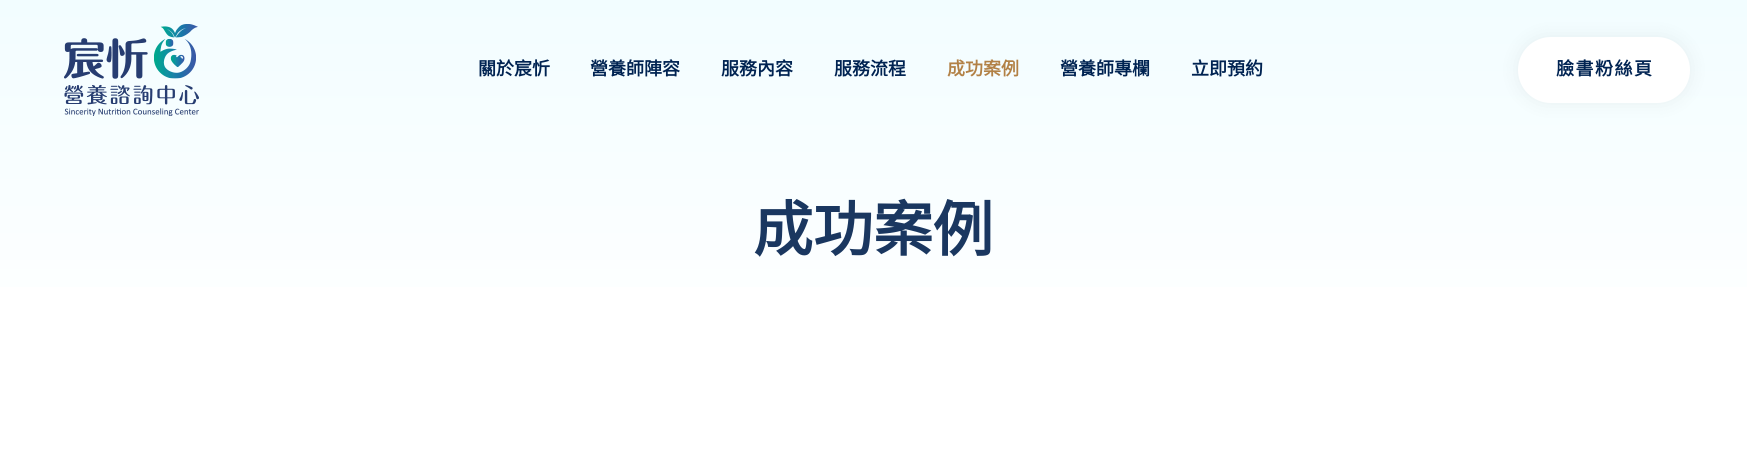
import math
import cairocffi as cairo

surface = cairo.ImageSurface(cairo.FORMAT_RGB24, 1747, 462)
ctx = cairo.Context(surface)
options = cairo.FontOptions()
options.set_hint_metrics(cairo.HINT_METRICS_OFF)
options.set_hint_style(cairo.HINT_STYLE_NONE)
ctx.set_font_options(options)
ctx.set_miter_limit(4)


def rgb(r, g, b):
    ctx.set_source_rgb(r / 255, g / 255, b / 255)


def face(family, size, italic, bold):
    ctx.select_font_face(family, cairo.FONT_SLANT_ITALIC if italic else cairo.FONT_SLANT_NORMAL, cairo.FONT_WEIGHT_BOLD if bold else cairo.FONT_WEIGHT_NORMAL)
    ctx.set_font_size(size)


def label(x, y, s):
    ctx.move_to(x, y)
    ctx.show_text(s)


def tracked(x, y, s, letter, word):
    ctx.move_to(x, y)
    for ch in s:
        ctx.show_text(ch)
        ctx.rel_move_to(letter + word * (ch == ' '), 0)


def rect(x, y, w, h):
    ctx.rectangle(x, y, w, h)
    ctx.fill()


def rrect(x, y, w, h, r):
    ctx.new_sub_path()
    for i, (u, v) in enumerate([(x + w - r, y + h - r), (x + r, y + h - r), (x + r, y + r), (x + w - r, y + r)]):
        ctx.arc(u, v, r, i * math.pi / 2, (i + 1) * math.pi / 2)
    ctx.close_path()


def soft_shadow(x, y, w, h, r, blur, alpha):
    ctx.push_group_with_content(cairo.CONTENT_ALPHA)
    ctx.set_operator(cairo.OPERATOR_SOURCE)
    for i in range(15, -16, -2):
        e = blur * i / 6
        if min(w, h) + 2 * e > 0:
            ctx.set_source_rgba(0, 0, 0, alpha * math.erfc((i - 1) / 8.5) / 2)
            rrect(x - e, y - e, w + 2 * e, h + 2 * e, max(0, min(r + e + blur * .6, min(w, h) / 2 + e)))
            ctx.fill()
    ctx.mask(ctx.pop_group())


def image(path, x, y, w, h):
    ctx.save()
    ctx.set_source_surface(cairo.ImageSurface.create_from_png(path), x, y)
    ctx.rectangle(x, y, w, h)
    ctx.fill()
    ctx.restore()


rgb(255, 255, 255)
ctx.paint()
gradient = cairo.LinearGradient(874, 0, 874, 355)
gradient.add_color_stop_rgba(0.01, 0.949, 0.992, 1, 1)
gradient.add_color_stop_rgba(1, 1, 1, 1, 1)
ctx.set_source(gradient)
rect(0, 0, 1747, 287)
image('image0.png', 64, 24, 135, 92)
face('Noto Sans CJK TC', 18, 0, 1)
rgb(0, 35, 82)
label(478, 75, '關於宸忻')
label(590, 75, '營養師陣容')
label(721, 75, '服務內容')
label(834, 75, '服務流程')
rgb(178, 129, 70)
label(947, 75, '成功案例')
rgb(0, 35, 82)
label(1060, 75, '營養師專欄')
label(1191, 75, '立即預約')
rgb(0, 0, 0)
soft_shadow(1518, 37, 172, 66, 33, 10, 0.06)
rgb(255, 255, 255)
rrect(1518, 37, 172, 66, 33)
ctx.fill()
rgb(0, 35, 82)
tracked(1556, 75, '臉書粉絲頁', 1.5, 0)
face('Noto Sans CJK TC', 60, 0, 1)
rgb(26, 55, 96)
label(753, 251, '成功案例')
surface.write_to_png('render.png')
